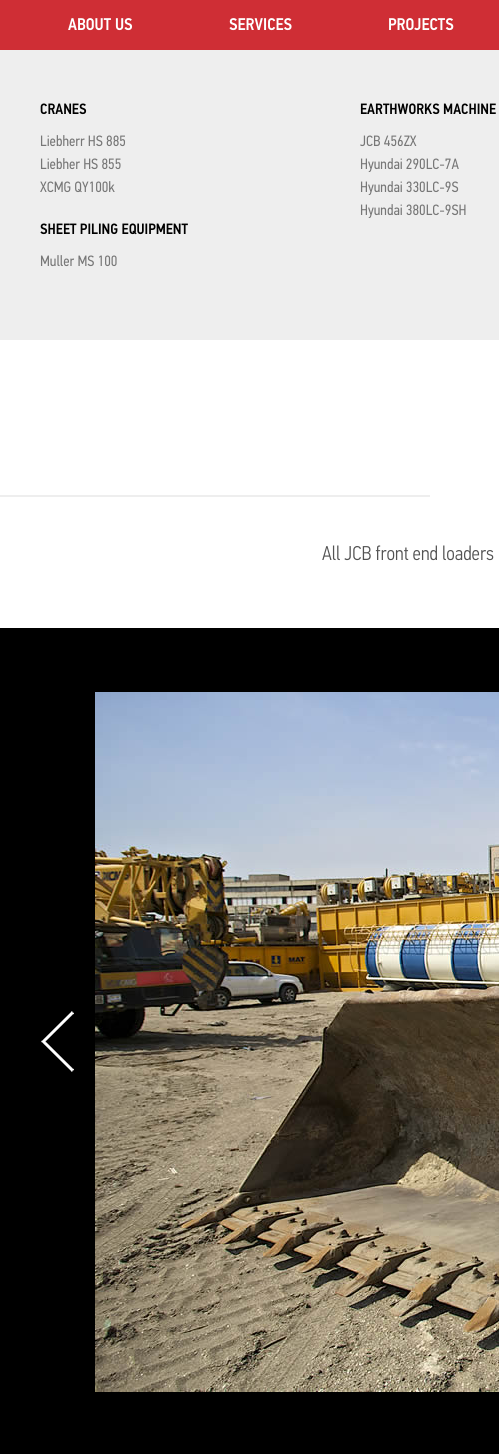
import math
import cairocffi as cairo

surface = cairo.ImageSurface(cairo.FORMAT_RGB24, 499, 1455)
ctx = cairo.Context(surface)
options = cairo.FontOptions()
options.set_hint_metrics(cairo.HINT_METRICS_OFF)
options.set_hint_style(cairo.HINT_STYLE_NONE)
ctx.set_font_options(options)
ctx.set_miter_limit(4)


def rgb(r, g, b):
    ctx.set_source_rgb(r / 255, g / 255, b / 255)


def face(family, size, italic, bold):
    ctx.select_font_face(family, cairo.FONT_SLANT_ITALIC if italic else cairo.FONT_SLANT_NORMAL, cairo.FONT_WEIGHT_BOLD if bold else cairo.FONT_WEIGHT_NORMAL)
    ctx.set_font_size(size)


def label(x, y, s):
    ctx.move_to(x, y)
    ctx.show_text(s)


def rect(x, y, w, h):
    ctx.rectangle(x, y, w, h)
    ctx.fill()


def image(path, x, y, w, h):
    ctx.save()
    ctx.set_source_surface(cairo.ImageSurface.create_from_png(path), x, y)
    ctx.rectangle(x, y, w, h)
    ctx.fill()
    ctx.restore()


rgb(255, 255, 255)
ctx.paint()
rgb(207, 46, 53)
rect(0, 0, 499, 50)
face('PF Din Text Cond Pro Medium', 17, 0, 0)
rgb(255, 255, 255)
label(68, 30, 'ABOUT US')
label(229, 30, 'SERVICES')
label(388, 30, 'PROJECTS')
rgb(238, 238, 238)
rect(0, 50, 499, 290)
face('PF Din Text Cond Pro Medium', 15, 0, 0)
rgb(0, 0, 0)
label(40, 114, 'CRANES')
face('PF Din Text Cond Pro', 15, 0, 0)
rgb(119, 119, 119)
label(40, 146, 'Liebherr HS 885')
label(40, 169, 'Liebher HS 855')
label(40, 192, 'XCMG QY100k')
face('PF Din Text Cond Pro Medium', 15, 0, 0)
rgb(0, 0, 0)
label(360, 114, 'EARTHWORKS MACHINE')
face('PF Din Text Cond Pro', 15, 0, 0)
rgb(119, 119, 119)
label(360, 146, 'JCB 456ZX')
label(360, 169, 'Hyundai 290LC-7A')
label(360, 192, 'Hyundai 330LC-9S')
label(360, 215, 'Hyundai 380LC-9SH')
face('PF Din Text Cond Pro Medium', 15, 0, 0)
rgb(0, 0, 0)
label(40, 234, 'SHEET PILING EQUIPMENT')
face('PF Din Text Cond Pro', 15, 0, 0)
rgb(119, 119, 119)
label(40, 266, 'Muller MS 100')
rgb(238, 238, 238)
rect(0, 495, 430, 2)
face('PF Din Text Cond Pro Light', 20, 0, 0)
rgb(83, 83, 83)
label(322, 560, 'All JCB front end loaders')
rgb(0, 0, 0)
rect(0, 628, 499, 826)
image('image0.png', 41, 1011, 33, 61)
image('image1.png', 95, 692, 404, 700)
surface.write_to_png('render.png')
